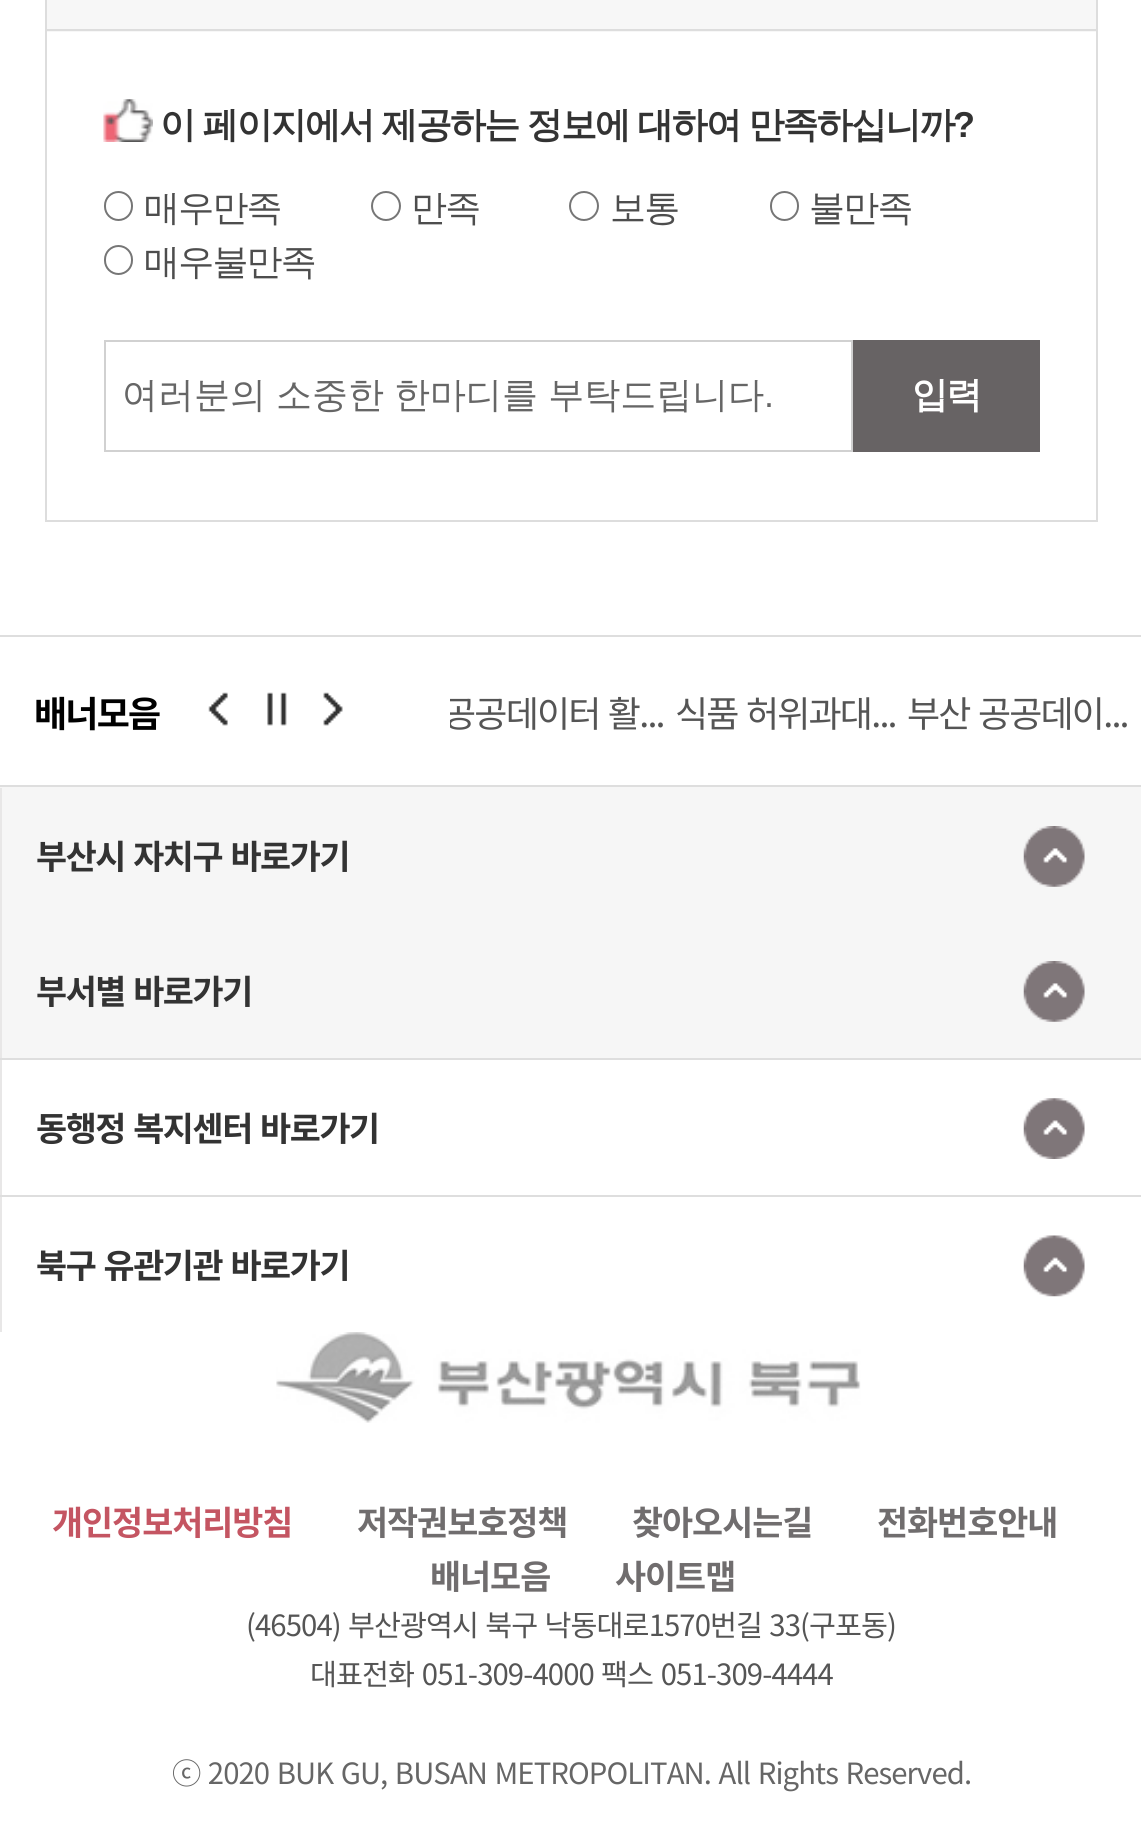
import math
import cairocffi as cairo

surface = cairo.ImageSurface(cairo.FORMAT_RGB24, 1141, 1841)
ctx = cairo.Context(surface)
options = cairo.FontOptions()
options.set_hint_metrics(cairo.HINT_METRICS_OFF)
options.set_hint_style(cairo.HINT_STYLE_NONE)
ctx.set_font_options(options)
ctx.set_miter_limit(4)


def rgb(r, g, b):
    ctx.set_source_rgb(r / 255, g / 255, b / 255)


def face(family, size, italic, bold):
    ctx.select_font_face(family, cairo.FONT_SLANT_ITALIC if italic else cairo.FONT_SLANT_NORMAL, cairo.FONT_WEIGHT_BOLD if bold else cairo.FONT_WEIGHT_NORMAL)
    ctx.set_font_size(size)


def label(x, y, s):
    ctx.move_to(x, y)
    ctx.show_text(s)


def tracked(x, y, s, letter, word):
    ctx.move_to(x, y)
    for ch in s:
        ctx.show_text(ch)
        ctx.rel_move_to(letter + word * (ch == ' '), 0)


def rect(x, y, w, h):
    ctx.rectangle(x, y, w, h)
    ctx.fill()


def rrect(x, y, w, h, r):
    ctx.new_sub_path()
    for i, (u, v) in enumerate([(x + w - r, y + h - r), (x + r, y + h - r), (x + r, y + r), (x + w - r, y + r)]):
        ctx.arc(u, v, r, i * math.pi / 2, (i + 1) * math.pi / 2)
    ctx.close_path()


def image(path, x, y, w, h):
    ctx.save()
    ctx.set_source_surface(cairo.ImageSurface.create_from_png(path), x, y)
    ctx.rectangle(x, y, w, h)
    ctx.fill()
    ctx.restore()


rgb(255, 255, 255)
ctx.paint()
ctx.rectangle(46, -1, 1051, 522)
rgb(221, 221, 221)
ctx.stroke()
rgb(247, 247, 247)
rect(47, 0, 1049, 32)
rgb(221, 221, 221)
rect(47, 29, 1049, 2)
image('image0.png', 103, 99, 50, 43)
face('WenQuanYi Zen Hei', 36, 0, 1)
rgb(51, 51, 51)
tracked(160, 137, '이 페이지에서 제공하는 정보에 대하여 만족하십니까', -1.8, -0.75)
face('Liberation Sans', 36, 0, 1)
tracked(953, 137, '?', -1.8, 0)
rrect(105, 192, 27, 28, 13.5)
rgb(118, 118, 118)
ctx.stroke()
face('WenQuanYi Zen Hei Medium', 36, 0, 0)
rgb(77, 77, 77)
tracked(144, 220, '매우만족', -1.8, 0)
ctx.new_path()
ctx.arc(386, 206, 14, 0, 2 * math.pi)
rgb(118, 118, 118)
ctx.stroke()
rgb(77, 77, 77)
tracked(411, 220, '만족', -1.8, 0)
ctx.new_path()
ctx.arc(584, 206, 14, 0, 2 * math.pi)
rgb(118, 118, 118)
ctx.stroke()
rgb(77, 77, 77)
tracked(610, 220, '보통', -1.8, 0)
rrect(771, 192, 27, 28, 13.5)
rgb(118, 118, 118)
ctx.stroke()
rgb(77, 77, 77)
tracked(809, 220, '불만족', -1.8, 0)
rrect(105, 246, 27, 28, 13.5)
rgb(118, 118, 118)
ctx.stroke()
rgb(77, 77, 77)
tracked(144, 274, '매우불만족', -1.8, 0)
ctx.rectangle(105, 341, 747, 110)
rgb(209, 209, 209)
ctx.stroke()
rgb(102, 102, 102)
tracked(122, 407, '여러분의 소중한 한마디를 부탁드립니다', 0, -0.75)
face('Liberation Sans', 36, 0, 0)
label(764, 407, '.')
rgb(103, 99, 100)
rect(853, 340, 187, 112)
face('WenQuanYi Zen Hei', 36, 0, 1)
rgb(255, 255, 255)
tracked(912, 407, '입력', -1.8, 0)
rgb(222, 222, 222)
rect(0, 635, 1141, 2)
face('Noto Sans KR', 36, 0, 1)
rgb(0, 0, 0)
tracked(34, 727, '배너모음', -1.8, 0)
image('image1.png', 208, 692, 20, 34)
image('image2.png', 267, 692, 20, 34)
image('image3.png', 323, 692, 20, 34)
ctx.save()
ctx.rectangle(450, 637, 225, 148)
ctx.clip()
face('Noto Sans KR', 36, 0, 0)
rgb(85, 85, 85)
tracked(443, 727, '공공데이터 활...', -1.8, 2)
ctx.restore()
face('Noto Sans KR', 36, 0, 0)
rgb(85, 85, 85)
tracked(675, 727, '식품 허위과대...', -1.8, 2)
tracked(907, 727, '부산 공공데이...', -1.8, 2)
rgb(246, 246, 246)
rect(0, 787, 1141, 271)
rgb(222, 222, 222)
rect(0, 785, 1141, 2)
rect(0, 1058, 1141, 2)
rgb(232, 231, 231)
rect(0, 788, 2, 270)
face('Noto Sans KR', 33.75, 0, 1)
rgb(51, 51, 51)
tracked(36, 869, '부산시 자치구 바로가기', -1.4, 2)
image('image4.png', 1023, 826, 62, 61)
tracked(36, 1004, '부서별 바로가기', -1.4, 2)
image('image4.png', 1023, 961, 62, 61)
rgb(232, 231, 231)
rect(0, 1060, 2, 135)
rgb(51, 51, 51)
tracked(36, 1141, '동행정 복지센터 바로가기', -1.4, 2)
image('image5.png', 1023, 1098, 62, 61)
rgb(222, 222, 222)
rect(0, 1195, 1141, 2)
rgb(232, 231, 231)
rect(0, 1197, 2, 135)
rgb(51, 51, 51)
tracked(36, 1278, '북구 유관기관 바로가기', -1.4, 2)
image('image6.png', 1023, 1235, 62, 62)
image('image7.png', 276, 1332, 585, 91)
rgb(196, 85, 98)
tracked(52, 1535, '개인정보처리방침', -1, 0)
rgb(112, 109, 110)
tracked(357, 1535, '저작권보호정책', -1, 0)
tracked(632, 1535, '찾아오시는길', -1, 0)
tracked(877, 1535, '전화번호안내', -1, 0)
tracked(430, 1589, '배너모음', -1, 0)
tracked(615, 1589, '사이트맵', -1, 0)
face('Noto Sans KR', 29.25, 0, 0)
rgb(85, 85, 85)
tracked(246, 1636, '(46504) 부산광역시 북구 낙동대로1570번길 33(구포동)', -0.88, 1.5)
tracked(310, 1685, '대표전화 051-309-4000', -0.88, 2)
tracked(601, 1685, '팩스 051-309-4444', -0.88, 2)
rgb(102, 102, 102)
tracked(172, 1784, 'ⓒ 2020 BUK GU, BUSAN METROPOLITAN. All Rights Reserved.', -0.88, 1.75)
surface.write_to_png('render.png')
